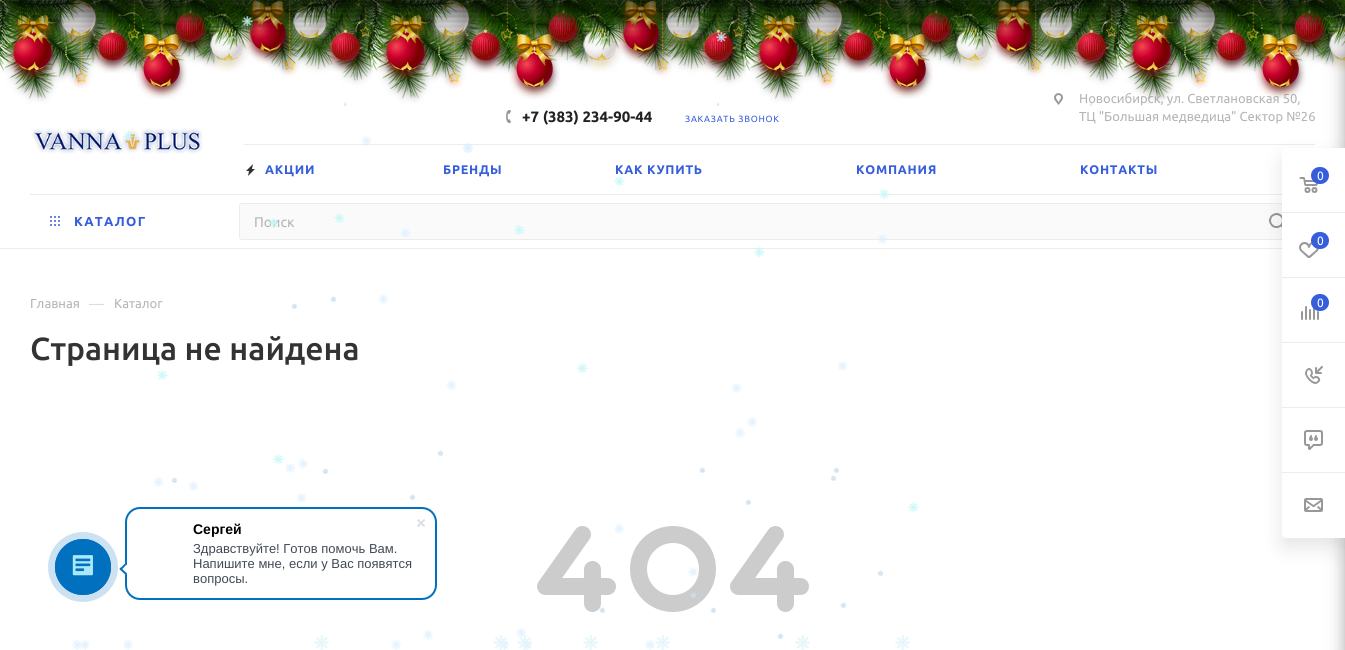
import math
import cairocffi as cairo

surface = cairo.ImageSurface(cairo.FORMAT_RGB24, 1345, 650)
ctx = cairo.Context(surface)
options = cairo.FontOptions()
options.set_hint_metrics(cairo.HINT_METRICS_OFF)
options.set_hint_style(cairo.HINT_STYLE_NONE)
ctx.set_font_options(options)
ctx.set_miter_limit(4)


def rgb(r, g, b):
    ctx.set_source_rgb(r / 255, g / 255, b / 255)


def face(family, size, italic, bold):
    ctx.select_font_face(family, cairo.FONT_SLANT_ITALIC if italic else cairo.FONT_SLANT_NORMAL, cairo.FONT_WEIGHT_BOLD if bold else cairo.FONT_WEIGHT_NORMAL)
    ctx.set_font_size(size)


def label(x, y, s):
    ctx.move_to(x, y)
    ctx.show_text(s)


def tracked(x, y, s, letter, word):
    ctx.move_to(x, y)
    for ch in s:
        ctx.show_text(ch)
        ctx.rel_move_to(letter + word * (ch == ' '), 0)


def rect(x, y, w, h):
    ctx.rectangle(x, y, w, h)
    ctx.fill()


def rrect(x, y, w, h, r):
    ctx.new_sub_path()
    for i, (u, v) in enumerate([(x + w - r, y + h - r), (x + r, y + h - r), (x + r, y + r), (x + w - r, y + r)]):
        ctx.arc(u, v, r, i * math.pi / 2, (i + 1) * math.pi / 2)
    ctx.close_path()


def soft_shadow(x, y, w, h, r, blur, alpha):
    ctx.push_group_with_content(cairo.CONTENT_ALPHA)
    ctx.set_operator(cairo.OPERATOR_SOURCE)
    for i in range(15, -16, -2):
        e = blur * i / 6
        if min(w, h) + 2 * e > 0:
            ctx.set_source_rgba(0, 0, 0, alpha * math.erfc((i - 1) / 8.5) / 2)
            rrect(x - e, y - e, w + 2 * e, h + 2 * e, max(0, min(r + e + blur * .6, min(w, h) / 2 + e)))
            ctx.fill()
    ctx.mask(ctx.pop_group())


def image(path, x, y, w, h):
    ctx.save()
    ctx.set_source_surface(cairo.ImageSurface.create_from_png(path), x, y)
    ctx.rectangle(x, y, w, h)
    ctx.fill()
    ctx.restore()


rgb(255, 255, 255)
ctx.paint()
image('image23.png', 1054, 93, 9, 12)
face('Ubuntu', 13, 0, 0)
rgb(182, 181, 181)
label(1079, 103, 'Новосибирск, ул. Светлановская 50,')
image('image2.png', 0, 0, 1345, 106)
image('image7.png', 136, 0, 51, 99)
image('image8.png', 170, 0, 41, 54)
image('image14.png', 204, 6, 45, 66)
image('image11.png', 243, 0, 49, 64)
image('image10.png', 205, 0, 50, 50)
image('image4.png', 6, 0, 52, 82)
image('image3.png', 0, 0, 25, 71)
image('image6.png', 54, 0, 49, 47)
image('image5.png', 25, 0, 61, 27)
image('image9.png', 177, 0, 28, 31)
image('image12.png', 287, 0, 46, 49)
image('image13.png', 91, 9, 42, 64)
image('image17.png', 325, 10, 41, 63)
image('image15.png', 289, 0, 78, 28)
image('image16.png', 367, 0, 6, 69)
image('image4.png', 379, 0, 52, 82)
image('image3.png', 373, 0, 25, 71)
image('image6.png', 427, 0, 49, 47)
image('image5.png', 398, 0, 61, 27)
image('image7.png', 509, 0, 51, 99)
image('image8.png', 543, 0, 41, 54)
image('image14.png', 577, 6, 45, 66)
image('image9.png', 550, 0, 28, 31)
image('image11.png', 616, 0, 49, 64)
image('image10.png', 578, 0, 50, 50)
image('image12.png', 660, 0, 46, 49)
image('image13.png', 464, 9, 42, 64)
image('image17.png', 698, 10, 41, 63)
image('image15.png', 662, 0, 78, 28)
image('image16.png', 740, 0, 6, 69)
image('image4.png', 752, 0, 52, 82)
image('image3.png', 746, 0, 25, 71)
image('image6.png', 800, 0, 49, 47)
image('image5.png', 771, 0, 61, 27)
image('image7.png', 882, 0, 51, 99)
image('image8.png', 916, 0, 41, 54)
image('image14.png', 950, 6, 45, 66)
image('image9.png', 923, 0, 28, 31)
image('image11.png', 989, 0, 49, 64)
image('image10.png', 951, 0, 50, 50)
image('image12.png', 1033, 0, 46, 49)
image('image13.png', 837, 9, 42, 64)
image('image17.png', 1071, 10, 41, 63)
image('image15.png', 1035, 0, 78, 28)
image('image16.png', 1113, 0, 6, 69)
image('image4.png', 1125, 0, 52, 82)
image('image3.png', 1119, 0, 25, 71)
image('image6.png', 1173, 0, 49, 47)
image('image5.png', 1144, 0, 61, 27)
image('image18.png', 1255, 0, 51, 99)
image('image8.png', 1289, 0, 41, 54)
image('image13.png', 1210, 9, 42, 64)
image('image20.png', 1323, 23, 22, 49)
image('image9.png', 1296, 0, 28, 31)
image('image19.png', 1324, 0, 21, 47)
rgb(0, 0, 0)
soft_shadow(0, -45, 1345, 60, 0, 15, 0.75)
image('image0.png', 242, 16, 11, 10)
image('image1.png', 716, 32, 11, 10)
image('image21.png', 31, 128, 172, 26)
image('image22.png', 506, 110, 5, 13)
face('Ubuntu', 15, 0, 1)
rgb(34, 34, 34)
label(522, 122, '+7 (383) 234-90-44')
face('Ubuntu', 9, 0, 0)
rgb(54, 94, 220)
tracked(685, 122, 'ЗАКАЗАТЬ ЗВОНОК', 0.75, 0)
face('Ubuntu', 13, 0, 0)
rgb(182, 181, 181)
label(1079, 121, 'ТЦ "Большая медведица" Cектор №26')
rgb(237, 237, 237)
rect(244, 144, 1071, 1)
image('image24.png', 246, 164, 9, 12)
face('Ubuntu', 12.5, 0, 1)
rgb(54, 94, 220)
tracked(265, 174, 'АКЦИИ', 0.75, 0)
tracked(443, 174, 'БРЕНДЫ', 0.75, 0)
tracked(615, 174, 'КАК КУПИТЬ', 0.75, 0)
tracked(856, 174, 'КОМПАНИЯ', 0.75, 0)
tracked(1080, 174, 'КОНТАКТЫ', 0.75, 0)
rgb(236, 236, 236)
rect(0, 248, 1282, 1)
rect(30, 194, 1252, 1)
image('image25.png', 50, 216, 10, 10)
face('Ubuntu', 13, 0, 1)
rgb(54, 94, 220)
tracked(74, 226, 'КАТАЛОГ', 1.25, 0)
rgb(250, 250, 250)
rrect(239.5, 203.5, 1059, 36, 2.5)
ctx.fill_preserve()
rgb(236, 236, 236)
ctx.set_line_width(1)
ctx.stroke()
face('Ubuntu', 14, 0, 0)
rgb(182, 181, 181)
label(254, 227, 'Поиск')
image('image26.png', 1269, 213, 13, 15)
face('Ubuntu', 13, 0, 0)
label(30, 308, 'Главная')
face('Ubuntu', 15, 0, 0)
rgb(221, 221, 221)
label(89, 309, '—')
face('Ubuntu', 13, 0, 0)
rgb(182, 181, 181)
label(114, 308, 'Каталог')
face('Ubuntu Medium', 32, 0, 0)
rgb(51, 51, 51)
label(30, 360, 'Страница не найдена')
image('image27.png', 537, 526, 272, 86)
rgb(44, 44, 44)
soft_shadow(1345, 6, 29, 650, 2, 9, 0.4)
rgb(0, 0, 0)
soft_shadow(1282, 158, 63, 390, 4, 10, 0.1)
rgb(255, 255, 255)
ctx.new_path()
ctx.move_to(1286, 148)
ctx.line_to(1345, 148)
ctx.line_to(1345, 538)
ctx.line_to(1286, 538)
ctx.curve_to(1284, 538, 1282, 536, 1282, 534)
ctx.line_to(1282, 152)
ctx.curve_to(1282, 150, 1284, 148, 1286, 148)
ctx.close_path()
ctx.fill()
rgb(236, 236, 236)
rect(1282, 212, 63, 1)
image('image28.png', 1299, 177, 19, 16)
rgb(54, 94, 220)
rrect(1311, 167, 18, 17, 8.5)
ctx.fill()
face('Ubuntu', 12, 0, 0)
rgb(255, 255, 255)
label(1317, 180, '0')
rgb(236, 236, 236)
rect(1282, 277, 63, 1)
image('image29.png', 1299, 242, 20, 16)
rgb(54, 94, 220)
rrect(1311, 232, 18, 17, 8.5)
ctx.fill()
rgb(255, 255, 255)
label(1317, 245, '0')
rgb(236, 236, 236)
rect(1282, 342, 63, 1)
image('image30.png', 1301, 306, 18, 14)
rgb(54, 94, 220)
rrect(1311, 294, 18, 17, 8.5)
ctx.fill()
rgb(255, 255, 255)
label(1317, 307, '0')
rgb(236, 236, 236)
rect(1282, 407, 63, 1)
image('image31.png', 1305, 366, 18, 18)
rect(1282, 472, 63, 1)
image('image32.png', 1304, 430, 19, 20)
image('image33.png', 1304, 498, 19, 14)
rgb(204, 226, 242)
ctx.arc(83, 567, 35, 0, 2 * math.pi)
ctx.fill()
ctx.arc(83, 567, 27.6, 0, 2 * math.pi)
rgb(0, 112, 191)
ctx.set_line_width(0.8)
ctx.stroke()
ctx.arc(83, 567, 28, 0, 2 * math.pi)
ctx.fill()
image('image34.png', 72, 555, 21, 21)
rrect(126, 508, 310, 91, 14)
ctx.set_line_width(2)
ctx.stroke()
rgb(255, 255, 255)
ctx.new_path()
ctx.move_to(130.5, 569)
ctx.line_to(125, 574.5)
ctx.line_to(119.5, 569)
ctx.line_to(125, 563.5)
ctx.close_path()
ctx.fill()
rgb(0, 112, 191)
ctx.new_path()
ctx.move_to(126.5, 573)
ctx.line_to(125, 574.5)
ctx.line_to(119.5, 569)
ctx.line_to(120.5, 567.5)
ctx.close_path()
ctx.fill()
ctx.new_path()
ctx.move_to(126.5, 564.5)
ctx.line_to(121, 570.5)
ctx.line_to(119.5, 569)
ctx.line_to(125, 563.5)
ctx.close_path()
ctx.fill()
face('Liberation Sans', 14, 0, 1)
rgb(0, 0, 0)
label(193, 534, 'Сергей')
face('Liberation Sans', 13, 0, 0)
rgb(66, 73, 86)
label(193, 553, 'Здравствуйте! Готов помочь Вам.')
label(193, 568, 'Напишите мне, если у Вас появятся')
label(193, 583, 'вопросы.')
image('image35.png', 417, 519, 8, 8)
image('image36.png', 123, 131, 11, 10)
image('image37.png', 361, 136, 11, 10)
image('image38.png', 462, 143, 11, 10)
image('image39.png', 463, 143, 11, 10)
image('image40.png', 614, 176, 11, 10)
image('image41.png', 879, 189, 11, 10)
image('image42.png', 268, 218, 11, 10)
image('image43.png', 334, 213, 11, 10)
image('image44.png', 400, 228, 11, 10)
image('image43.png', 514, 225, 11, 10)
image('image45.png', 877, 234, 10, 10)
image('image46.png', 754, 247, 11, 10)
image('image47.png', 330, 296, 7, 6)
image('image48.png', 378, 294, 11, 10)
image('image47.png', 291, 303, 7, 6)
image('image40.png', 577, 363, 11, 10)
image('image48.png', 837, 361, 11, 10)
image('image40.png', 157, 370, 11, 10)
image('image48.png', 446, 380, 11, 10)
image('image48.png', 731, 383, 11, 10)
image('image48.png', 747, 417, 11, 10)
image('image49.png', 735, 427, 10, 11)
image('image47.png', 437, 450, 7, 6)
image('image40.png', 273, 454, 11, 10)
image('image48.png', 285, 463, 11, 10)
image('image49.png', 298, 458, 10, 11)
image('image47.png', 322, 468, 7, 6)
image('image47.png', 699, 467, 7, 6)
image('image47.png', 833, 467, 7, 6)
image('image48.png', 153, 477, 11, 10)
image('image47.png', 171, 477, 7, 6)
image('image47.png', 830, 475, 7, 6)
image('image48.png', 188, 481, 11, 10)
image('image48.png', 296, 493, 11, 10)
image('image47.png', 409, 494, 7, 6)
image('image47.png', 745, 499, 7, 6)
image('image40.png', 908, 502, 11, 10)
image('image49.png', 614, 523, 10, 11)
image('image50.png', 688, 566, 10, 11)
image('image47.png', 877, 570, 7, 6)
image('image51.png', 690, 592, 6, 6)
image('image47.png', 840, 602, 7, 6)
image('image52.png', 599, 607, 7, 6)
image('image47.png', 710, 607, 7, 6)
image('image53.png', 314, 635, 15, 15)
image('image49.png', 423, 629, 10, 11)
image('image49.png', 499, 639, 10, 11)
image('image54.png', 493, 635, 15, 15)
image('image49.png', 516, 627, 10, 11)
image('image47.png', 777, 633, 7, 6)
image('image49.png', 80, 639, 10, 11)
image('image55.png', 72, 639, 10, 11)
image('image49.png', 123, 639, 10, 11)
image('image49.png', 391, 639, 10, 11)
image('image49.png', 522, 639, 10, 11)
image('image56.png', 517, 635, 15, 15)
image('image53.png', 583, 635, 15, 15)
image('image53.png', 655, 635, 15, 15)
image('image53.png', 795, 635, 15, 15)
image('image53.png', 895, 635, 15, 15)
image('image49.png', 645, 639, 10, 11)
surface.write_to_png('render.png')
